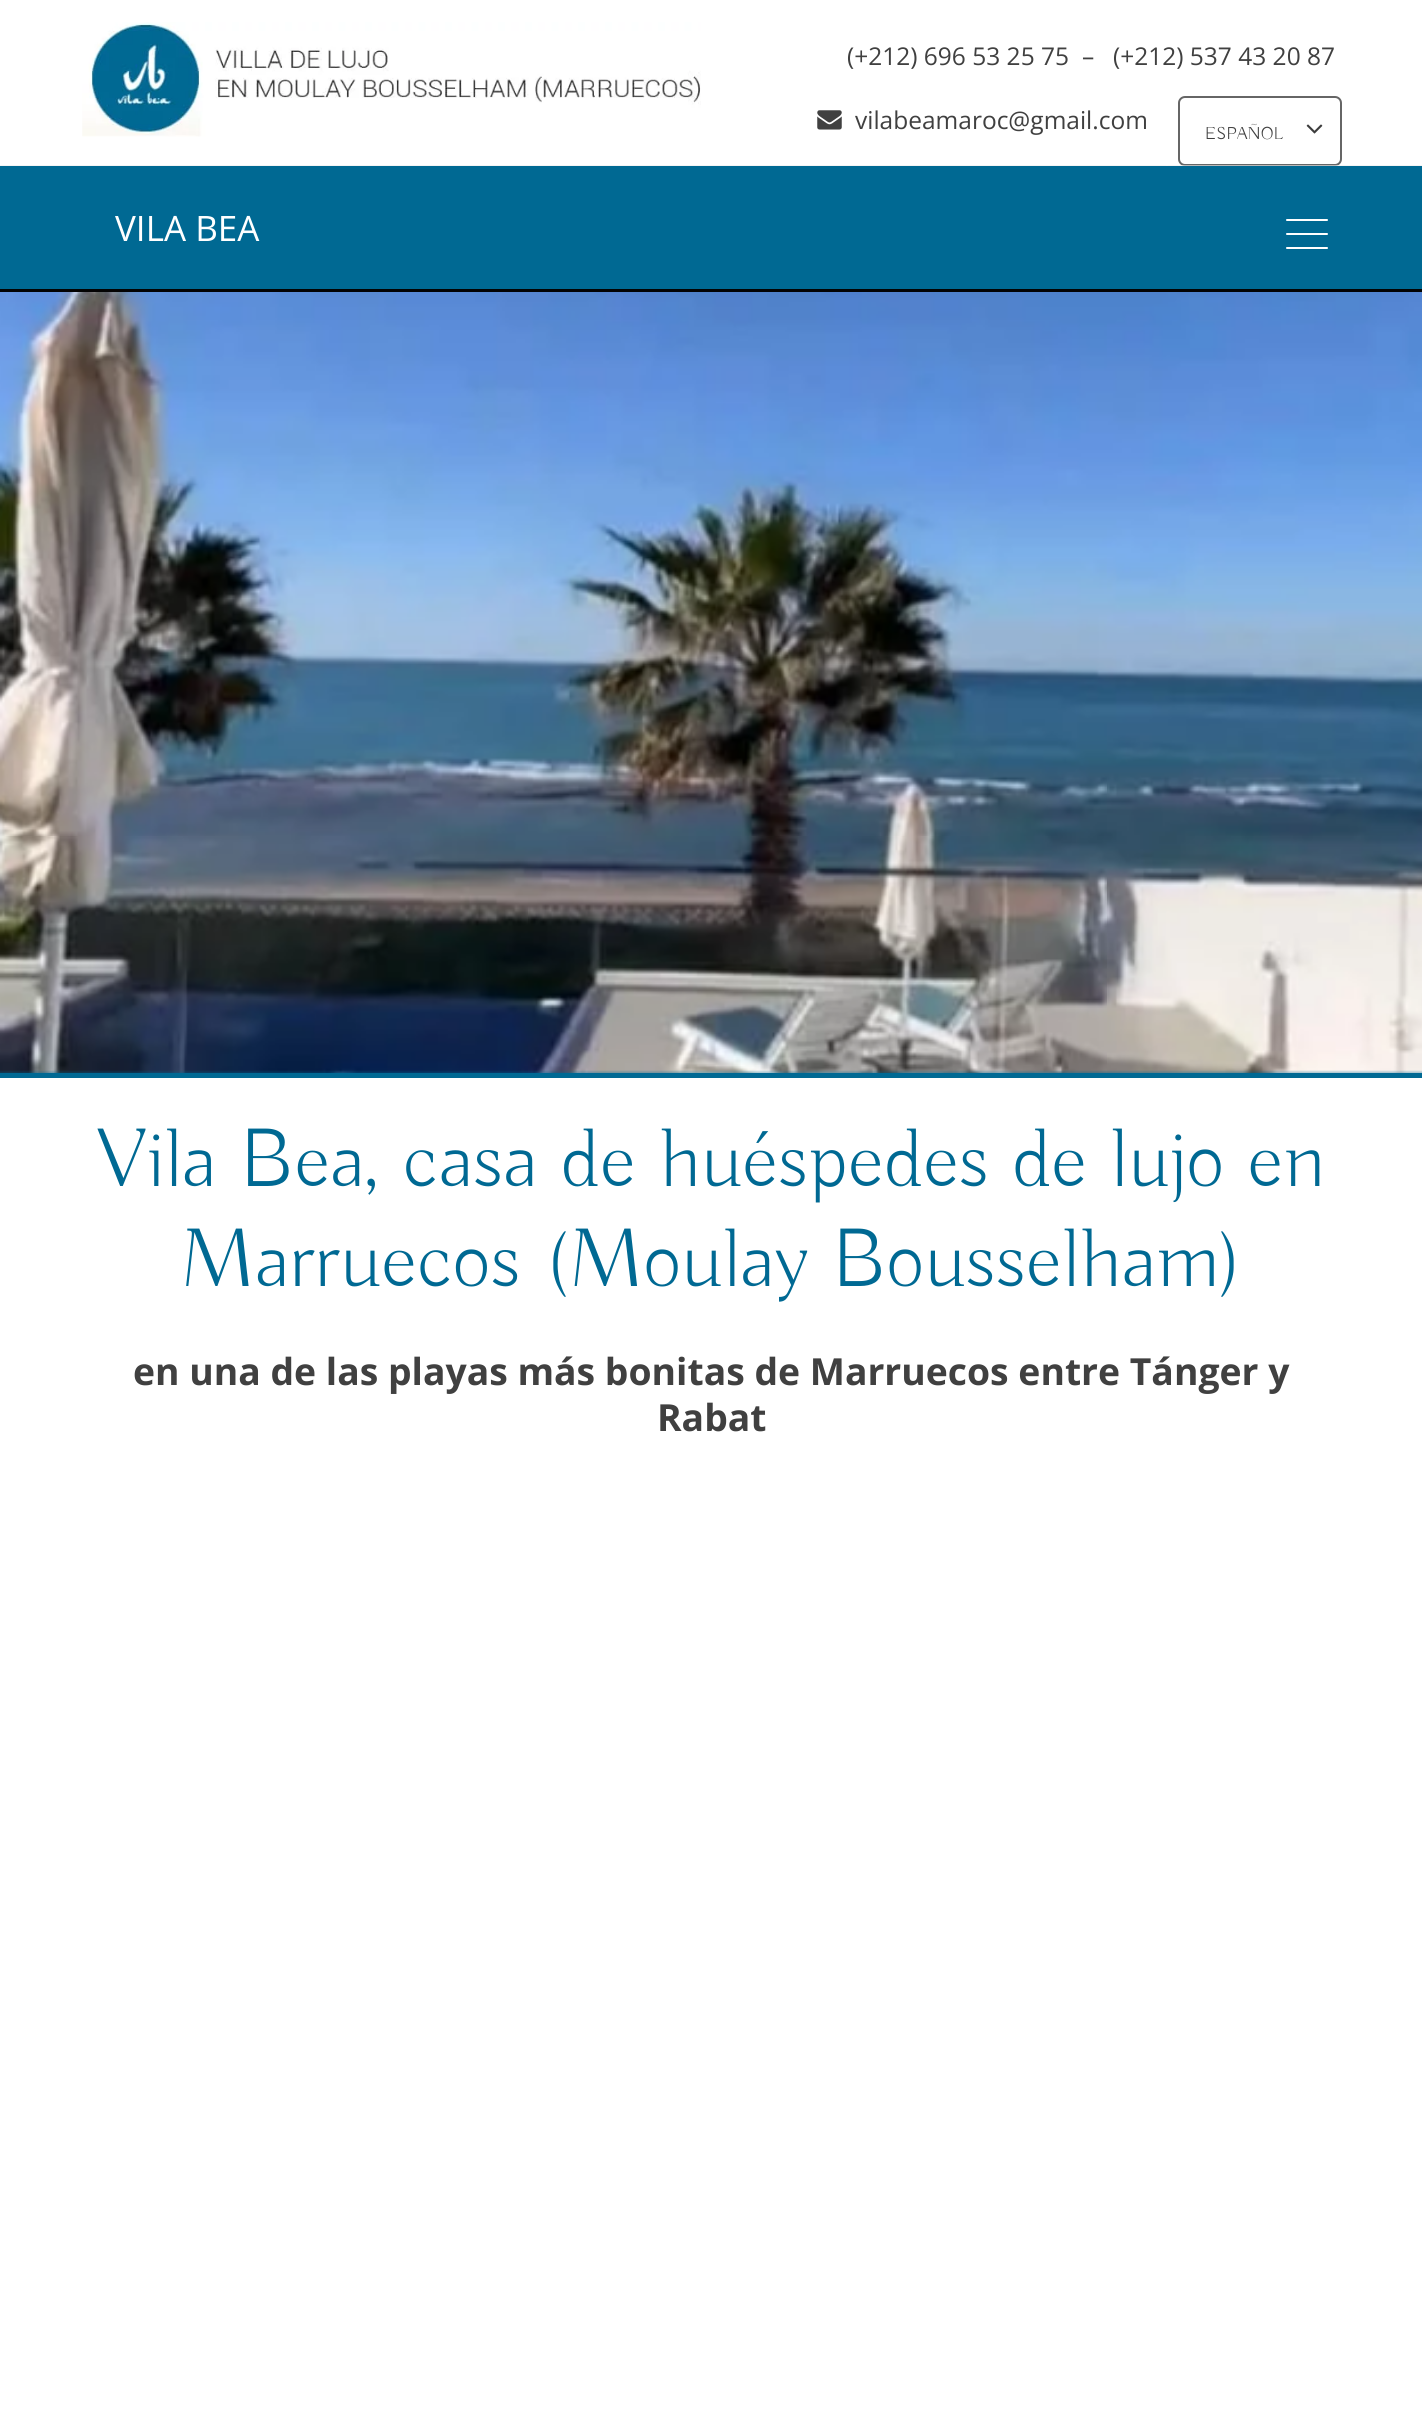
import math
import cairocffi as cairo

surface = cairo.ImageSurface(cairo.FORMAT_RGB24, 1422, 2420)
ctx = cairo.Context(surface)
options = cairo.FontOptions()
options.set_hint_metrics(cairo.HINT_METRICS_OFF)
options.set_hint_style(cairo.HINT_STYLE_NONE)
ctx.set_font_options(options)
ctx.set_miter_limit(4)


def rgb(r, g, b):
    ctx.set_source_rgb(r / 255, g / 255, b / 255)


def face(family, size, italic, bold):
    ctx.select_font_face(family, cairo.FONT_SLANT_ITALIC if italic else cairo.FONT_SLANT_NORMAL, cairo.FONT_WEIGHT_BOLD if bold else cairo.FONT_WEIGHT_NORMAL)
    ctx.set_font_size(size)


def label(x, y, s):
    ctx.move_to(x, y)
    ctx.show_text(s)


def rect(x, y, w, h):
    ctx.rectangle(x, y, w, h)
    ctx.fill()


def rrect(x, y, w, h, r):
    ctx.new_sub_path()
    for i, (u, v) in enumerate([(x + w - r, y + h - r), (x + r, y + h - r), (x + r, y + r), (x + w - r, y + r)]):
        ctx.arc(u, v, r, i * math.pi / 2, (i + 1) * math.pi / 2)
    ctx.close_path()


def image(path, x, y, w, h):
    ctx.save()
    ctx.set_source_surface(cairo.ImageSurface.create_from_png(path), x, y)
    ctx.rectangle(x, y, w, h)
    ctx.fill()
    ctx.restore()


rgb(255, 255, 255)
ctx.paint()
rgb(230, 230, 230)
rect(0, 165, 1422, 1)
rgb(233, 233, 233)
rect(1166, 165, 2, 1)
image('image0.png', 82, 22, 619, 115)
face('Open Sans', 24.5, 0, 0)
rgb(64, 64, 64)
label(847, 65, '(+212) 696 53 25 75')
label(1082, 65, '–')
label(1113, 65, '(+212) 537 43 20 87')
image('image1.png', 817, 110, 25, 20)
label(855, 129, 'vilabeamaroc@gmail.com')
rrect(1179, 97, 162, 68, 6)
ctx.set_source_rgba(0, 0, 0, 0.6)
ctx.stroke()
face('Buda Light', 17.5, 0, 0)
rgb(64, 64, 64)
label(1205, 139, 'ESPAÑOL')
image('image2.png', 1306, 124, 17, 10)
ctx.set_source_rgba(1, 1, 1, 0.57)
ctx.new_path()
ctx.move_to(0, 165)
ctx.line_to(0, 166)
ctx.line_to(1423, 166)
ctx.line_to(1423, 287)
ctx.line_to(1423, 165)
ctx.close_path()
ctx.fill()
rgb(3, 3, 3)
ctx.new_path()
ctx.move_to(0, 289)
ctx.line_to(0, 292)
ctx.line_to(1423, 292)
ctx.line_to(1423, 170)
ctx.line_to(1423, 289)
ctx.close_path()
ctx.fill()
rgb(0, 105, 147)
rect(0, 166, 1422, 123)
face('Open Sans', 35, 0, 0)
rgb(255, 255, 255)
label(115, 241, 'VILA BEA')
rrect(1286, 219, 42, 2, 1)
ctx.fill()
rrect(1286, 233, 42, 2, 1)
ctx.fill()
rrect(1286, 247, 42, 2, 1)
ctx.fill()
rgb(0, 105, 147)
rect(0, 1070, 1422, 8)
image('image3.png', 0, 292, 1422, 781)
face('Buda Light', 84, 0, 0)
label(97, 1186, 'Vila Bea, casa de huéspedes de lujo en')
label(179, 1286, 'Marruecos (Moulay Bousselham)')
face('Open Sans', 37.3, 0, 1)
rgb(64, 64, 64)
label(133, 1385, 'en una de las playas más bonitas de Marruecos entre Tánger y')
label(657, 1431, 'Rabat')
surface.write_to_png('render.png')
